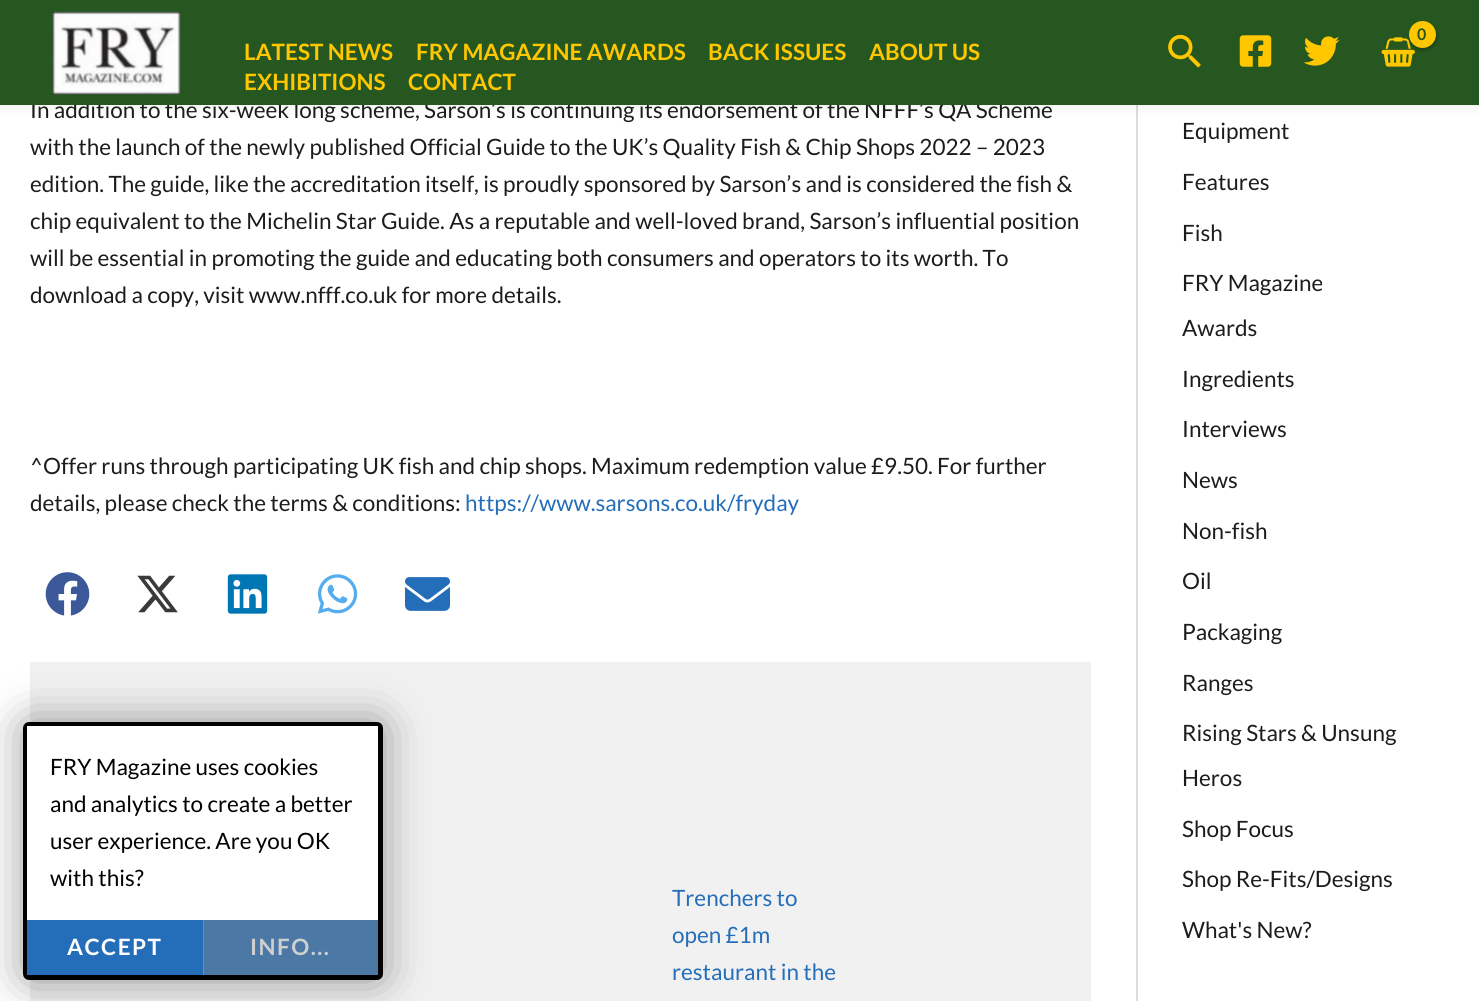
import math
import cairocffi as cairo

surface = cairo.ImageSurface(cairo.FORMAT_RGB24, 1479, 1001)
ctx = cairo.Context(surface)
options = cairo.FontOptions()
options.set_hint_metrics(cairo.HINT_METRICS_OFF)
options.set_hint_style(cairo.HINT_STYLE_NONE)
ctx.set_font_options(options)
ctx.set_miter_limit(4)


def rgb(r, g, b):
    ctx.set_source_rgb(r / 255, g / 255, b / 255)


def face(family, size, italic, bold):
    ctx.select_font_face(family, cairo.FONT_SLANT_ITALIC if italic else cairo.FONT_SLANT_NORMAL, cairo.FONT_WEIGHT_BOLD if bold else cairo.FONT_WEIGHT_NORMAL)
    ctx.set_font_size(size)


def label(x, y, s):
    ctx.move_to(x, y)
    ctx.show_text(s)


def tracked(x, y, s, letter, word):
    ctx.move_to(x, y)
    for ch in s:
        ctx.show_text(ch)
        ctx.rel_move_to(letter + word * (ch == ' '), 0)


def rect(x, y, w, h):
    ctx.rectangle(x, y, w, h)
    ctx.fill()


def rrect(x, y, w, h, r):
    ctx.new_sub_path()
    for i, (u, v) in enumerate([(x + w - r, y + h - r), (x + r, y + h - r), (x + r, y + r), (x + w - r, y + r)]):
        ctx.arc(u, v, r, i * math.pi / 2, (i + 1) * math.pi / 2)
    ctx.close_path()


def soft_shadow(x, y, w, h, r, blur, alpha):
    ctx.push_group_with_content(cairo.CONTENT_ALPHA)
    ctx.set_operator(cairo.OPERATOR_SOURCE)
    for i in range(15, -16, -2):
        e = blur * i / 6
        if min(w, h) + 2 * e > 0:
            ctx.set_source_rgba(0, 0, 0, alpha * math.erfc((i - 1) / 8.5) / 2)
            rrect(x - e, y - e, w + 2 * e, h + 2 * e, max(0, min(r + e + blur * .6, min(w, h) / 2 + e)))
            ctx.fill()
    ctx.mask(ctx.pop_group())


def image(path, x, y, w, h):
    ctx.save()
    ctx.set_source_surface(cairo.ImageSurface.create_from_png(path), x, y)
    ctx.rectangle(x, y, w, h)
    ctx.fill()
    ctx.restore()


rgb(255, 255, 255)
ctx.paint()
rgb(221, 221, 221)
rect(1136, 105, 2, 896)
rgb(36, 50, 66)
soft_shadow(0, 3, 1479, 105, 0, 7.5, 0.07)
face('Lato', 22.5, 0, 0)
rgb(28, 28, 27)
label(30, 118, 'In addition to the six-week long scheme, Sarson’s is continuing its endorsement of the NFFF’s QA Scheme')
rgb(39, 87, 32)
rect(0, 0, 1479, 105)
image('image0.png', 1168, 34, 33, 34)
image('image1.png', 1239, 35, 33, 32)
image('image2.png', 1304, 36, 36, 30)
image('image3.png', 1381, 37, 34, 30)
rgb(0, 0, 0)
soft_shadow(1410, 23, 27, 27, 13.5, 2, 0.3)
rgb(254, 199, 0)
ctx.arc(1422.5, 34.5, 13.5, 0, 2 * math.pi)
ctx.fill()
face('Lato', 16, 0, 1)
rgb(39, 87, 32)
tracked(1417, 40, '0', -1, 0)
image('image4.png', 52, 11, 129, 84)
face('Lato', 22.5, 0, 1)
rgb(254, 199, 0)
label(244, 60, 'LATEST NEWS')
label(416, 60, 'FRY MAGAZINE AWARDS')
label(708, 60, 'BACK ISSUES')
label(869, 60, 'ABOUT US')
label(244, 90, 'EXHIBITIONS')
label(408, 90, 'CONTACT')
face('Lato', 22.5, 0, 0)
rgb(28, 28, 27)
label(30, 155, 'with the launch of the newly published Official Guide to the UK’s Quality Fish & Chip Shops 2022 – 2023')
label(30, 192, 'edition. The guide, like the accreditation itself, is proudly sponsored by Sarson’s and is considered the fish &')
label(30, 229, 'chip equivalent to the Michelin Star Guide. As a reputable and well-loved brand, Sarson’s influential position')
label(30, 266, 'will be essential in promoting the guide and educating both consumers and operators to its worth. To')
label(30, 303, 'download a copy, visit www.nfff.co.uk for more details.')
label(30, 474, '^Offer runs through participating UK fish and chip shops. Maximum redemption value £9.50. For further')
label(30, 511, 'details, please check the terms & conditions:')
rgb(36, 110, 185)
label(465, 511, 'https://www.sarsons.co.uk/fryday')
image('image5.png', 45, 572, 45, 44)
image('image6.png', 137, 575, 41, 38)
image('image7.png', 227, 574, 41, 40)
image('image8.png', 317, 574, 41, 40)
image('image9.png', 405, 577, 45, 34)
rgb(241, 241, 241)
rect(30, 662, 1061, 339)
rgb(36, 110, 185)
label(672, 906, 'Trenchers to')
label(672, 943, 'open £1m')
label(672, 980, 'restaurant in the')
rgb(28, 28, 27)
label(1182, 139, 'Equipment')
label(1182, 190, 'Features')
label(1182, 241, 'Fish')
label(1182, 291, 'FRY Magazine')
label(1182, 336, 'Awards')
label(1182, 387, 'Ingredients')
label(1182, 437, 'Interviews')
label(1182, 488, 'News')
label(1182, 539, 'Non-fish')
label(1182, 589, 'Oil')
label(1182, 640, 'Packaging')
label(1182, 691, 'Ranges')
label(1182, 741, 'Rising Stars & Unsung')
label(1182, 786, 'Heros')
label(1182, 837, 'Shop Focus')
label(1182, 887, 'Shop Re-Fits/Designs')
label(1182, 938, 'What\'s New?')
rgb(0, 0, 0)
soft_shadow(23, 722, 360, 258, 6, 22.5, 0.4)
rrect(25.5, 724.5, 355, 253, 3.5)
rgb(0, 0, 0)
ctx.set_line_width(5)
ctx.stroke()
rgb(255, 255, 255)
rect(27, 726, 351, 194)
rgb(0, 0, 0)
label(50, 775, 'FRY Magazine uses cookies')
label(50, 812, 'and analytics to create a better')
label(50, 849, 'user experience. Are you OK')
label(50, 886, 'with this?')
rgb(136, 136, 136)
rect(203, 920, 1, 55)
rgb(36, 110, 185)
rect(27, 920, 176, 55)
face('Lato', 22.5, 0, 1)
rgb(255, 255, 255)
tracked(67, 955, 'ACCEPT', 1.5, 0)
rgb(76, 120, 165)
rect(204, 920, 174, 55)
rgb(207, 207, 207)
tracked(250, 955, 'INFO...', 1.5, 0)
surface.write_to_png('render.png')
